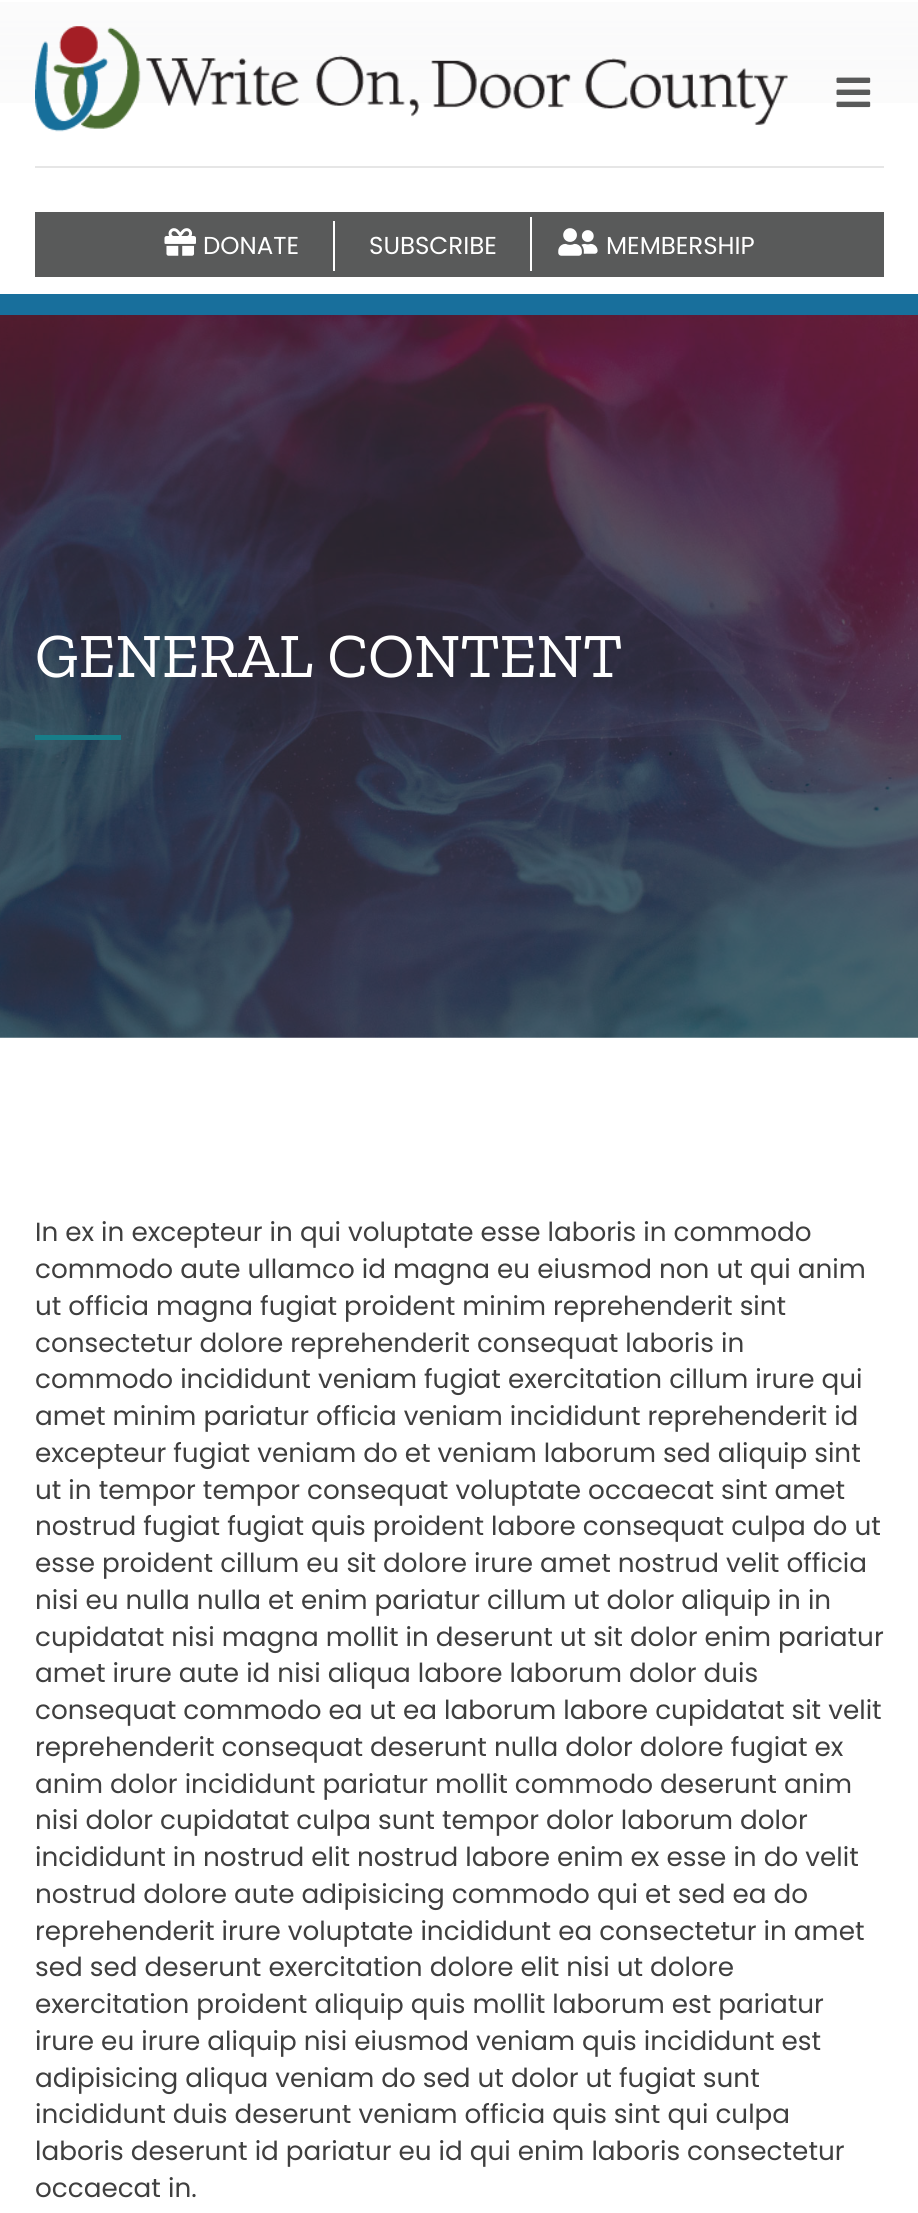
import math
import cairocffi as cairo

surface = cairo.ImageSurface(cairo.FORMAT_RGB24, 918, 2213)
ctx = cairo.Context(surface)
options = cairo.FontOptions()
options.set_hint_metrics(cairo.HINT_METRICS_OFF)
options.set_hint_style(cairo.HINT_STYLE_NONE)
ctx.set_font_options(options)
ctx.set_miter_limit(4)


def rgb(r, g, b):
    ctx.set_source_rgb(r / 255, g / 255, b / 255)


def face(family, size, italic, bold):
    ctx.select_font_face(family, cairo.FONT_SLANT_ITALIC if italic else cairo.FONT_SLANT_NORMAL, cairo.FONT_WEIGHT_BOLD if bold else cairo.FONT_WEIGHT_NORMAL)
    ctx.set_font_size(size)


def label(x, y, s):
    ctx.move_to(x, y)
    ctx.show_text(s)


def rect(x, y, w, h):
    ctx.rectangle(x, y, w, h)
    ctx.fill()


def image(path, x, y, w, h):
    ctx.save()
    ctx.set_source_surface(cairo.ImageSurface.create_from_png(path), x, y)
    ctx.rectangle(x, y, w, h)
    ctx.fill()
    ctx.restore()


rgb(255, 255, 255)
ctx.paint()
image('image0.png', 0, 2, 918, 101)
rgb(24, 111, 156)
rect(0, 294, 918, 21)
image('image1.png', 836, 77, 35, 31)
image('image2.png', 35, 26, 753, 106)
rgb(230, 230, 230)
rect(35, 166, 849, 2)
rgb(89, 90, 90)
rect(35, 212, 849, 65)
image('image3.png', 164, 228, 32, 28)
face('Poppins', 24.5, 0, 0)
rgb(255, 255, 255)
label(203, 254, 'DONATE')
rect(333, 221, 2, 50)
label(369, 254, 'SUBSCRIBE')
rect(530, 217, 2, 54)
image('image4.png', 558, 228, 40, 28)
label(606, 254, 'MEMBERSHIP')
image('image5.png', 0, 315, 918, 723)
face('Zilla Slab', 63, 0, 0)
label(35, 677, 'GENERAL CONTENT')
rgb(23, 126, 137)
rect(35, 735, 86, 5)
face('Poppins', 26.25, 0, 0)
rgb(63, 63, 63)
label(35, 1241, 'In ex in excepteur in qui voluptate esse laboris in commodo')
label(35, 1278, 'commodo aute ullamco id magna eu eiusmod non ut qui anim')
label(35, 1315, 'ut officia magna fugiat proident minim reprehenderit sint')
label(35, 1352, 'consectetur dolore reprehenderit consequat laboris in')
label(35, 1388, 'commodo incididunt veniam fugiat exercitation cillum irure qui')
label(35, 1425, 'amet minim pariatur officia veniam incididunt reprehenderit id')
label(35, 1462, 'excepteur fugiat veniam do et veniam laborum sed aliquip sint')
label(35, 1499, 'ut in tempor tempor consequat voluptate occaecat sint amet')
label(35, 1535, 'nostrud fugiat fugiat quis proident labore consequat culpa do ut')
label(35, 1572, 'esse proident cillum eu sit dolore irure amet nostrud velit officia')
label(35, 1609, 'nisi eu nulla nulla et enim pariatur cillum ut dolor aliquip in in')
label(35, 1646, 'cupidatat nisi magna mollit in deserunt ut sit dolor enim pariatur')
label(35, 1682, 'amet irure aute id nisi aliqua labore laborum dolor duis')
label(35, 1719, 'consequat commodo ea ut ea laborum labore cupidatat sit velit')
label(35, 1756, 'reprehenderit consequat deserunt nulla dolor dolore fugiat ex')
label(35, 1793, 'anim dolor incididunt pariatur mollit commodo deserunt anim')
label(35, 1829, 'nisi dolor cupidatat culpa sunt tempor dolor laborum dolor')
label(35, 1866, 'incididunt in nostrud elit nostrud labore enim ex esse in do velit')
label(35, 1903, 'nostrud dolore aute adipisicing commodo qui et sed ea do')
label(35, 1940, 'reprehenderit irure voluptate incididunt ea consectetur in amet')
label(35, 1976, 'sed sed deserunt exercitation dolore elit nisi ut dolore')
label(35, 2013, 'exercitation proident aliquip quis mollit laborum est pariatur')
label(35, 2050, 'irure eu irure aliquip nisi eiusmod veniam quis incididunt est')
label(35, 2087, 'adipisicing aliqua veniam do sed ut dolor ut fugiat sunt')
label(35, 2123, 'incididunt duis deserunt veniam officia quis sint qui culpa')
label(35, 2160, 'laboris deserunt id pariatur eu id qui enim laboris consectetur')
label(35, 2197, 'occaecat in.')
surface.write_to_png('render.png')
